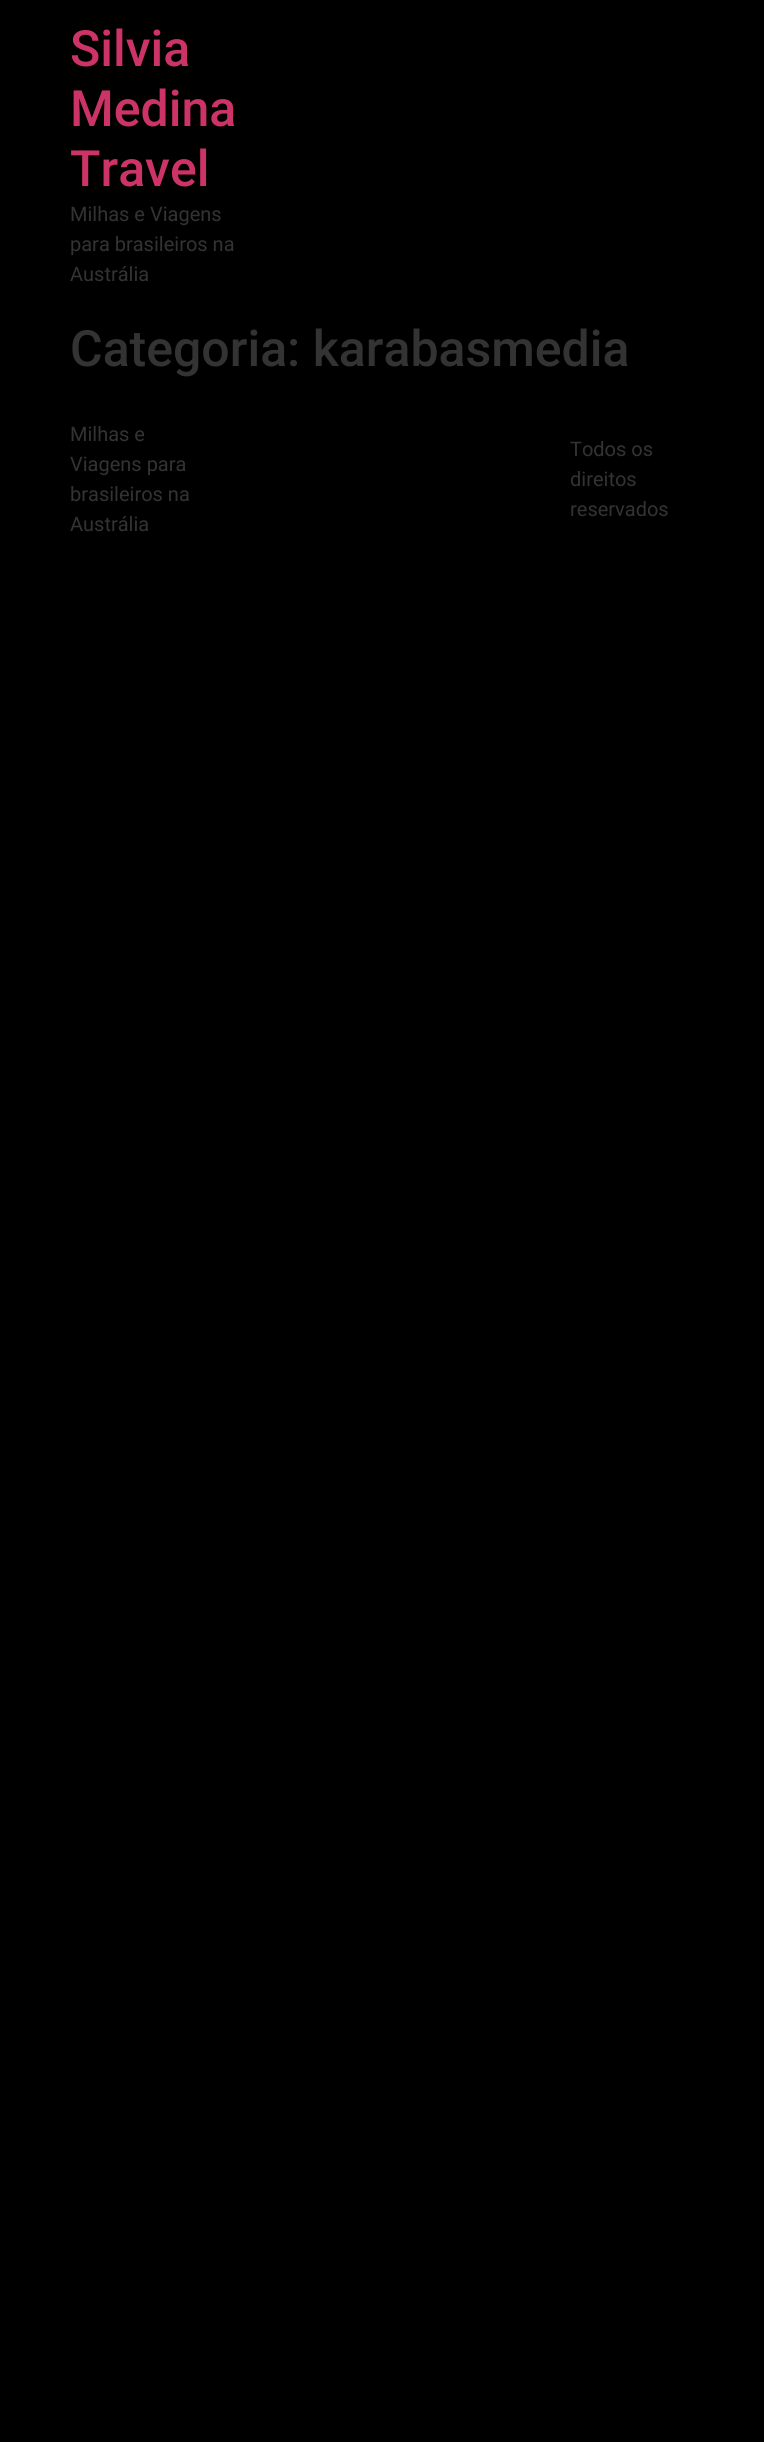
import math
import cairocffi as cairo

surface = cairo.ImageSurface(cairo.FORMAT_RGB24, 764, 2442)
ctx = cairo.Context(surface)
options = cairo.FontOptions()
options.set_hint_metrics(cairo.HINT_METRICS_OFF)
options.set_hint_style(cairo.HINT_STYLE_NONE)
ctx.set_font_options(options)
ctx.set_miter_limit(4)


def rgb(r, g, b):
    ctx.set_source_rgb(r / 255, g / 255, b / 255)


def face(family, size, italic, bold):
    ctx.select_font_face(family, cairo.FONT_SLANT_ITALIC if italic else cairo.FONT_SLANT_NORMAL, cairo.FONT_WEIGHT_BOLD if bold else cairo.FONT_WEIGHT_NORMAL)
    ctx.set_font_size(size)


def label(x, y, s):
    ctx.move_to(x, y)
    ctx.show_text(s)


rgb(0, 0, 0)
ctx.paint()
face('Roboto Medium', 50, 0, 0)
rgb(204, 51, 102)
label(70, 66, 'Silvia')
label(70, 126, 'Medina')
label(70, 186, 'Travel')
face('Roboto', 20, 0, 0)
rgb(51, 51, 51)
label(70, 221, 'Milhas e Viagens')
label(70, 251, 'para brasileiros na')
label(70, 281, 'Austrália')
face('Roboto Medium', 50, 0, 0)
label(70, 366, 'Categoria: karabasmedia')
face('Roboto', 20, 0, 0)
label(70, 441, 'Milhas e')
label(70, 471, 'Viagens para')
label(70, 501, 'brasileiros na')
label(70, 531, 'Austrália')
label(570, 456, 'Todos os')
label(570, 486, 'direitos')
label(570, 516, 'reservados')
surface.write_to_png('render.png')
